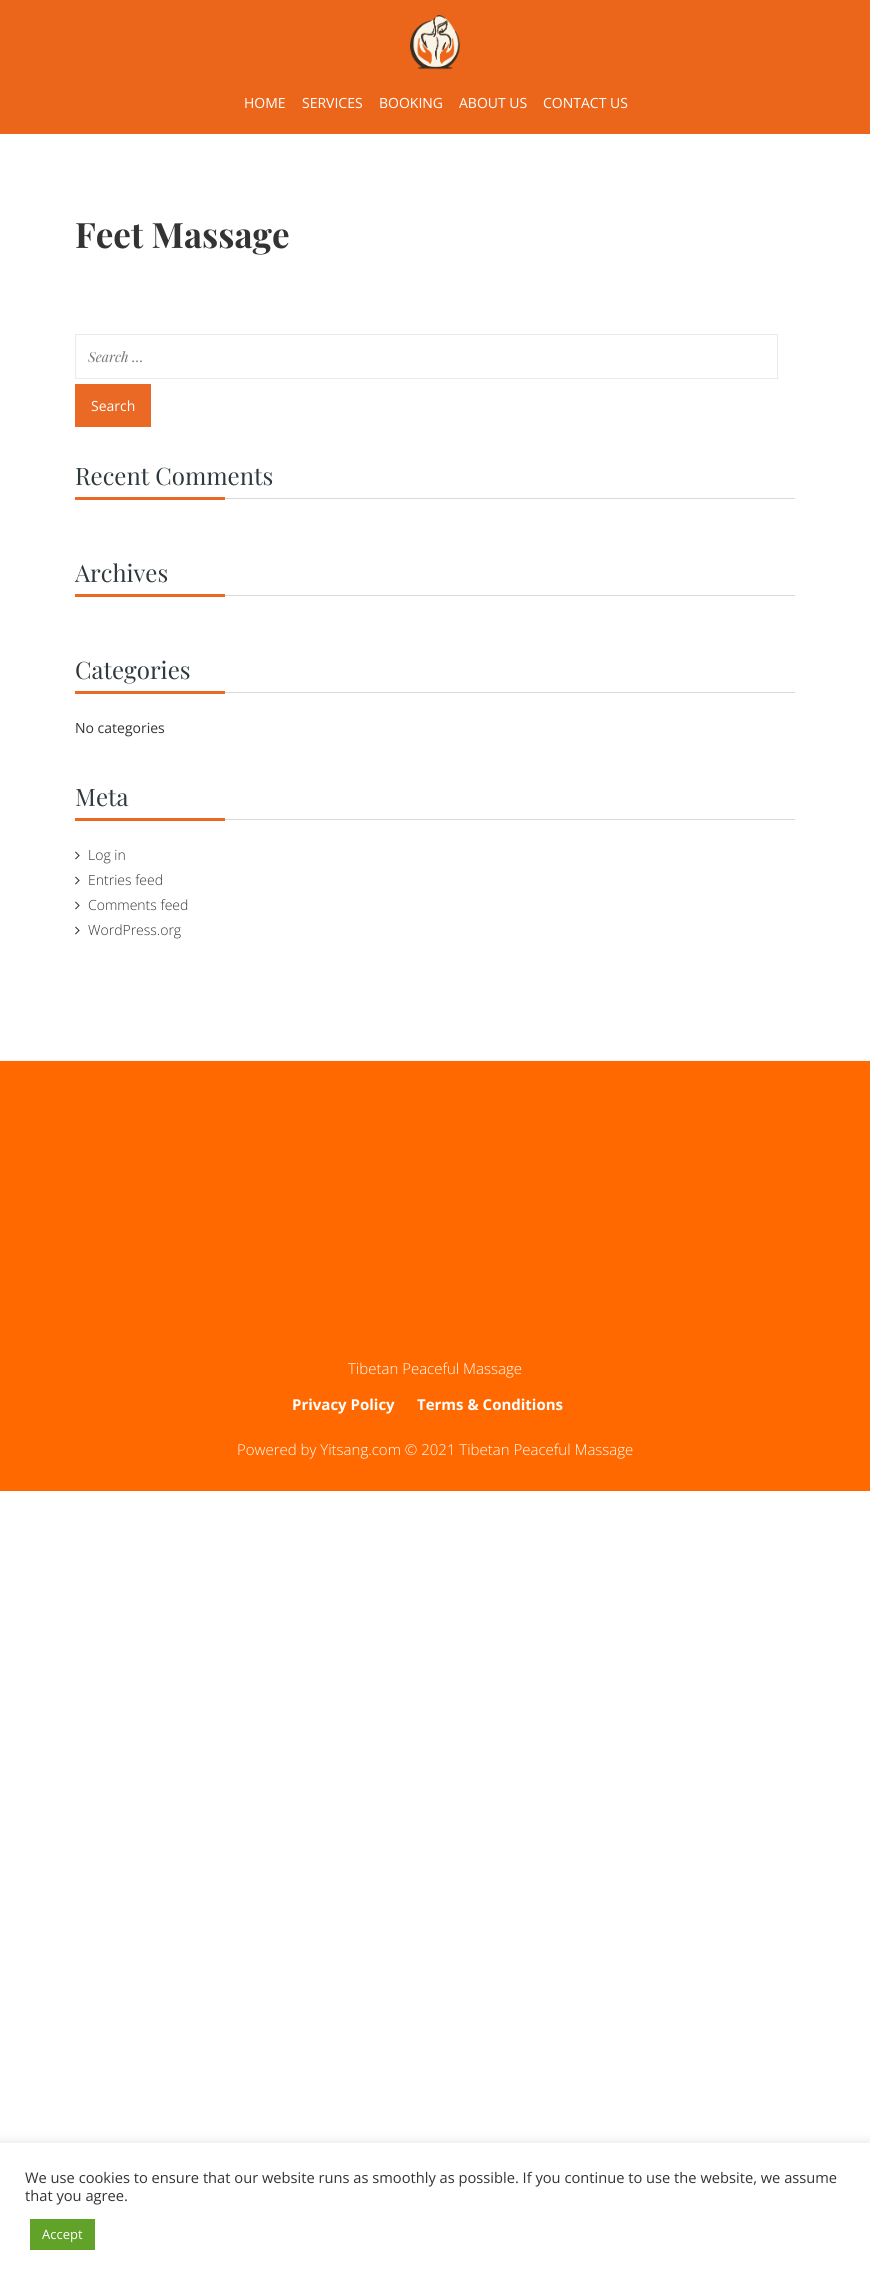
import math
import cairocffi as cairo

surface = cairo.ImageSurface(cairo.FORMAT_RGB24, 870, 2280)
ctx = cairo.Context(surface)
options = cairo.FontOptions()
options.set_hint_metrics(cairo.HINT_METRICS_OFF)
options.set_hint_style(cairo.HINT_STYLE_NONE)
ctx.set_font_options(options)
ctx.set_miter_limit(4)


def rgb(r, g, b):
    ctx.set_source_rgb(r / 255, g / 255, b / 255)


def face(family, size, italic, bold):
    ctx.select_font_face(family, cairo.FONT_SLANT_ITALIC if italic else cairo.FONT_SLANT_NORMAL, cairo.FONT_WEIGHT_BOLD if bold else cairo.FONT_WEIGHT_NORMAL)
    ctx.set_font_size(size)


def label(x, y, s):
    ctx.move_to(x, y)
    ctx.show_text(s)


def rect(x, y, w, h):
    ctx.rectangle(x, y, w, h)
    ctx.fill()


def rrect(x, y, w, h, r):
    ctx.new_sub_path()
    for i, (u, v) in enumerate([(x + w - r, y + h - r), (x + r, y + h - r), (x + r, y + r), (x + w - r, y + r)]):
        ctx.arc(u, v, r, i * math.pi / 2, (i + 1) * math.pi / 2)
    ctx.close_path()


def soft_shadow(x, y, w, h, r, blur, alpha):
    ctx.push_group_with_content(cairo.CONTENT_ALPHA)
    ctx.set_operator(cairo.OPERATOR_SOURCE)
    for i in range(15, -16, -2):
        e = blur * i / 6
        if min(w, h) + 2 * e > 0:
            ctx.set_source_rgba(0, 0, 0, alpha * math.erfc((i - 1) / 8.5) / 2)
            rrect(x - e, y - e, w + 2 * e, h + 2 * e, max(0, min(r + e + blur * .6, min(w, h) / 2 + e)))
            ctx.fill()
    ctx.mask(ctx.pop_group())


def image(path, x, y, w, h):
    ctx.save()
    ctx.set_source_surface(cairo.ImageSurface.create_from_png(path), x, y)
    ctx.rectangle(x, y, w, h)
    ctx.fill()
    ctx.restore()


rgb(255, 255, 255)
ctx.paint()
rgb(235, 102, 26)
rect(0, 0, 870, 134)
image('image0.png', 410, 15, 50, 55)
face('Open Sans', 14, 0, 0)
rgb(255, 255, 255)
label(244, 108, 'HOME')
label(302, 108, 'SERVICES')
label(379, 108, 'BOOKING')
label(459, 108, 'ABOUT US')
label(543, 108, 'CONTACT US')
face('Playfair Display', 35, 0, 1)
rgb(51, 51, 51)
label(75, 248, 'Feet Massage')
ctx.rectangle(75.5, 334.5, 702, 44)
rgb(229, 236, 239)
ctx.set_line_width(1)
ctx.stroke()
face('Playfair Display', 14, 1, 0)
rgb(117, 117, 117)
label(88, 362, 'Search …')
rgb(234, 105, 37)
rect(75, 384, 76, 43)
face('Open Sans', 14, 0, 0)
rgb(255, 255, 255)
label(91, 411, 'Search')
rgb(213, 218, 221)
rect(225, 498, 570, 1)
face('Playfair Display', 24, 0, 0)
rgb(47, 56, 61)
label(75, 485, 'Recent Comments')
rgb(234, 105, 37)
rect(75, 497, 150, 3)
rgb(213, 218, 221)
rect(225, 595, 570, 1)
rgb(47, 56, 61)
label(75, 582, 'Archives')
rgb(234, 105, 37)
rect(75, 594, 150, 3)
rgb(213, 218, 221)
rect(225, 692, 570, 1)
rgb(47, 56, 61)
label(75, 679, 'Categories')
rgb(234, 105, 37)
rect(75, 691, 150, 3)
face('Open Sans', 14, 0, 0)
rgb(51, 51, 51)
label(75, 733, 'No categories')
rgb(213, 218, 221)
rect(225, 819, 570, 1)
face('Playfair Display', 24, 0, 0)
rgb(47, 56, 61)
label(75, 806, 'Meta')
rgb(234, 105, 37)
rect(75, 818, 150, 3)
image('image1.png', 75, 851, 5, 9)
face('Open Sans Light', 14, 0, 0)
rgb(51, 51, 51)
label(88, 860, 'Log in')
image('image1.png', 75, 876, 5, 9)
label(88, 885, 'Entries feed')
image('image1.png', 75, 901, 5, 9)
label(88, 910, 'Comments feed')
image('image1.png', 75, 926, 5, 9)
label(88, 935, 'WordPress.org')
rgb(247, 247, 247)
rect(0, 1060, 870, 1)
rgb(255, 105, 0)
rect(0, 1061, 870, 430)
face('Open Sans Light', 15, 0, 0)
rgb(255, 255, 255)
label(348, 1374, 'Tibetan Peaceful Massage')
face('Open Sans', 15, 0, 1)
label(292, 1410, 'Privacy Policy')
label(417, 1410, 'Terms & Conditions')
face('Open Sans Light', 15, 0, 0)
label(237, 1455, 'Powered by Yitsang.com © 2021 Tibetan Peaceful Massage')
rgb(172, 171, 171)
soft_shadow(0, 2142, 870, 137, 0, 5, 0.3)
rgb(255, 255, 255)
rect(0, 2143, 870, 137)
face('Open Sans', 14.67, 0, 0)
rgb(51, 51, 51)
label(25, 2183, 'We use cookies to ensure that our website runs as smoothly as possible. If you continue to use the website, we assume')
label(25, 2201, 'that you agree.')
rgb(97, 162, 41)
rect(30, 2219, 65, 31)
face('Open Sans', 13, 0, 0)
rgb(255, 255, 255)
label(42, 2239, 'Accept')
surface.write_to_png('render.png')
